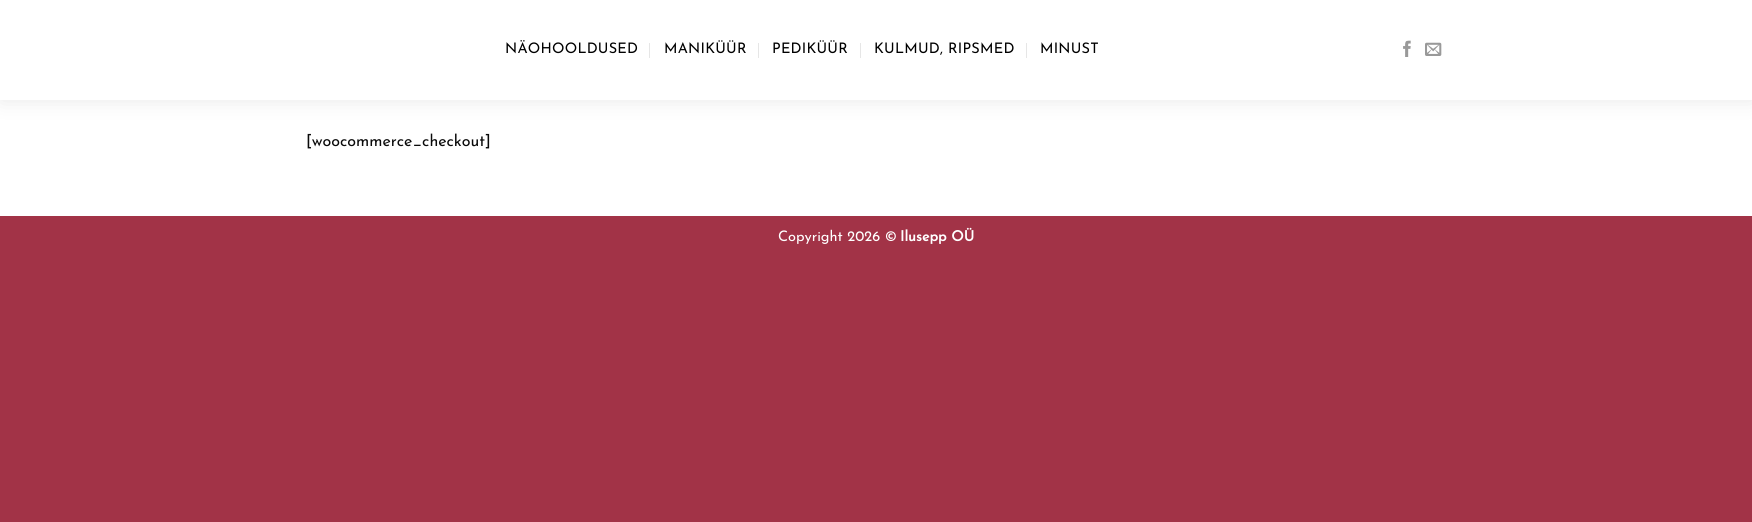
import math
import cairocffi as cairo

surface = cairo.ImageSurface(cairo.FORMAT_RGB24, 1752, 522)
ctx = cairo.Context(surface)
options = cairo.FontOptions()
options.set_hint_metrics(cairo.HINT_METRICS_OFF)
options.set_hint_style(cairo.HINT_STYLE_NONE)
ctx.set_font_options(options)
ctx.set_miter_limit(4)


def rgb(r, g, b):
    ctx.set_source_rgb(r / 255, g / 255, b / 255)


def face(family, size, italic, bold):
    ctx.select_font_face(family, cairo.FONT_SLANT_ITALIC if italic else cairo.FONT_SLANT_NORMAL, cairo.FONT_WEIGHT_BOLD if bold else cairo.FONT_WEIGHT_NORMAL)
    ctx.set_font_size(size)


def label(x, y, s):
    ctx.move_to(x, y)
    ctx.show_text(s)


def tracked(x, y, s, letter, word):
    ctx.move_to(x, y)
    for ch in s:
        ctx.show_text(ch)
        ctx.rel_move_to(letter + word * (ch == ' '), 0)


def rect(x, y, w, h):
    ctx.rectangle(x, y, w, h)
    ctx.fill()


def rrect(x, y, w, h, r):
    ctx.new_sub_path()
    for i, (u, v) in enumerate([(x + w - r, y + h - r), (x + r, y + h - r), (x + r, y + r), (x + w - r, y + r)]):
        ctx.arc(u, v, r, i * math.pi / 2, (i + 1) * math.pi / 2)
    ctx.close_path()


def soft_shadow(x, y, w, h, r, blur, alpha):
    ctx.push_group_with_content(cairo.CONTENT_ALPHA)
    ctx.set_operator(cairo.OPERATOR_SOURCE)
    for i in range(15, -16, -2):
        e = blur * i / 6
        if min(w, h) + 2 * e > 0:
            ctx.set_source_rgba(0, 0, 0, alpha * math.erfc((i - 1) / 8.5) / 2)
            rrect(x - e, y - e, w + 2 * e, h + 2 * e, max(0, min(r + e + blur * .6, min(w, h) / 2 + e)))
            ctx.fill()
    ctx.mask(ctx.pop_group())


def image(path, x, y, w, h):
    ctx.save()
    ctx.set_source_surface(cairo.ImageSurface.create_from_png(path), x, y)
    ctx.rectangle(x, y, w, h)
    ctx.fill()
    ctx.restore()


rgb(162, 51, 71)
ctx.paint()
rgb(255, 255, 255)
rect(0, 0, 1752, 216)
ctx.save()
ctx.rectangle(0, 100, 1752, 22)
ctx.clip()
rgb(234, 234, 234)
soft_shadow(1, 1, 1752, 100, 0, 10, 1)
ctx.restore()
face('Josefin Sans Thin', 14.5, 0, 0)
rgb(0, 0, 0)
tracked(505, 53, 'NÄOHOOLDUSED', 0.25, 0)
rgb(230, 230, 230)
rect(649, 43, 1, 15)
rgb(0, 0, 0)
tracked(664, 53, 'MANIKÜÜR', 0.25, 0)
rgb(230, 230, 230)
rect(758, 43, 1, 15)
rgb(0, 0, 0)
tracked(772, 53, 'PEDIKÜÜR', 0.25, 0)
rgb(230, 230, 230)
rect(860, 43, 1, 15)
rgb(0, 0, 0)
tracked(874, 53, 'KULMUD, RIPSMED', 0.25, 0)
rgb(230, 230, 230)
rect(1026, 43, 1, 15)
rgb(0, 0, 0)
tracked(1040, 53, 'MINUST', 0.25, 0)
image('image0.png', 1403, 40, 8, 17)
image('image1.png', 1425, 42, 17, 14)
face('Josefin Sans Thin', 16, 0, 0)
rgb(10, 10, 10)
label(306, 146, '[woocommerce_checkout]')
face('Josefin Sans Thin', 14.5, 0, 0)
rgb(255, 255, 255)
label(778, 241, 'Copyright 2026 ©')
face('Josefin Sans', 14.5, 0, 1)
label(900, 241, 'Ilusepp OÜ')
surface.write_to_png('render.png')
